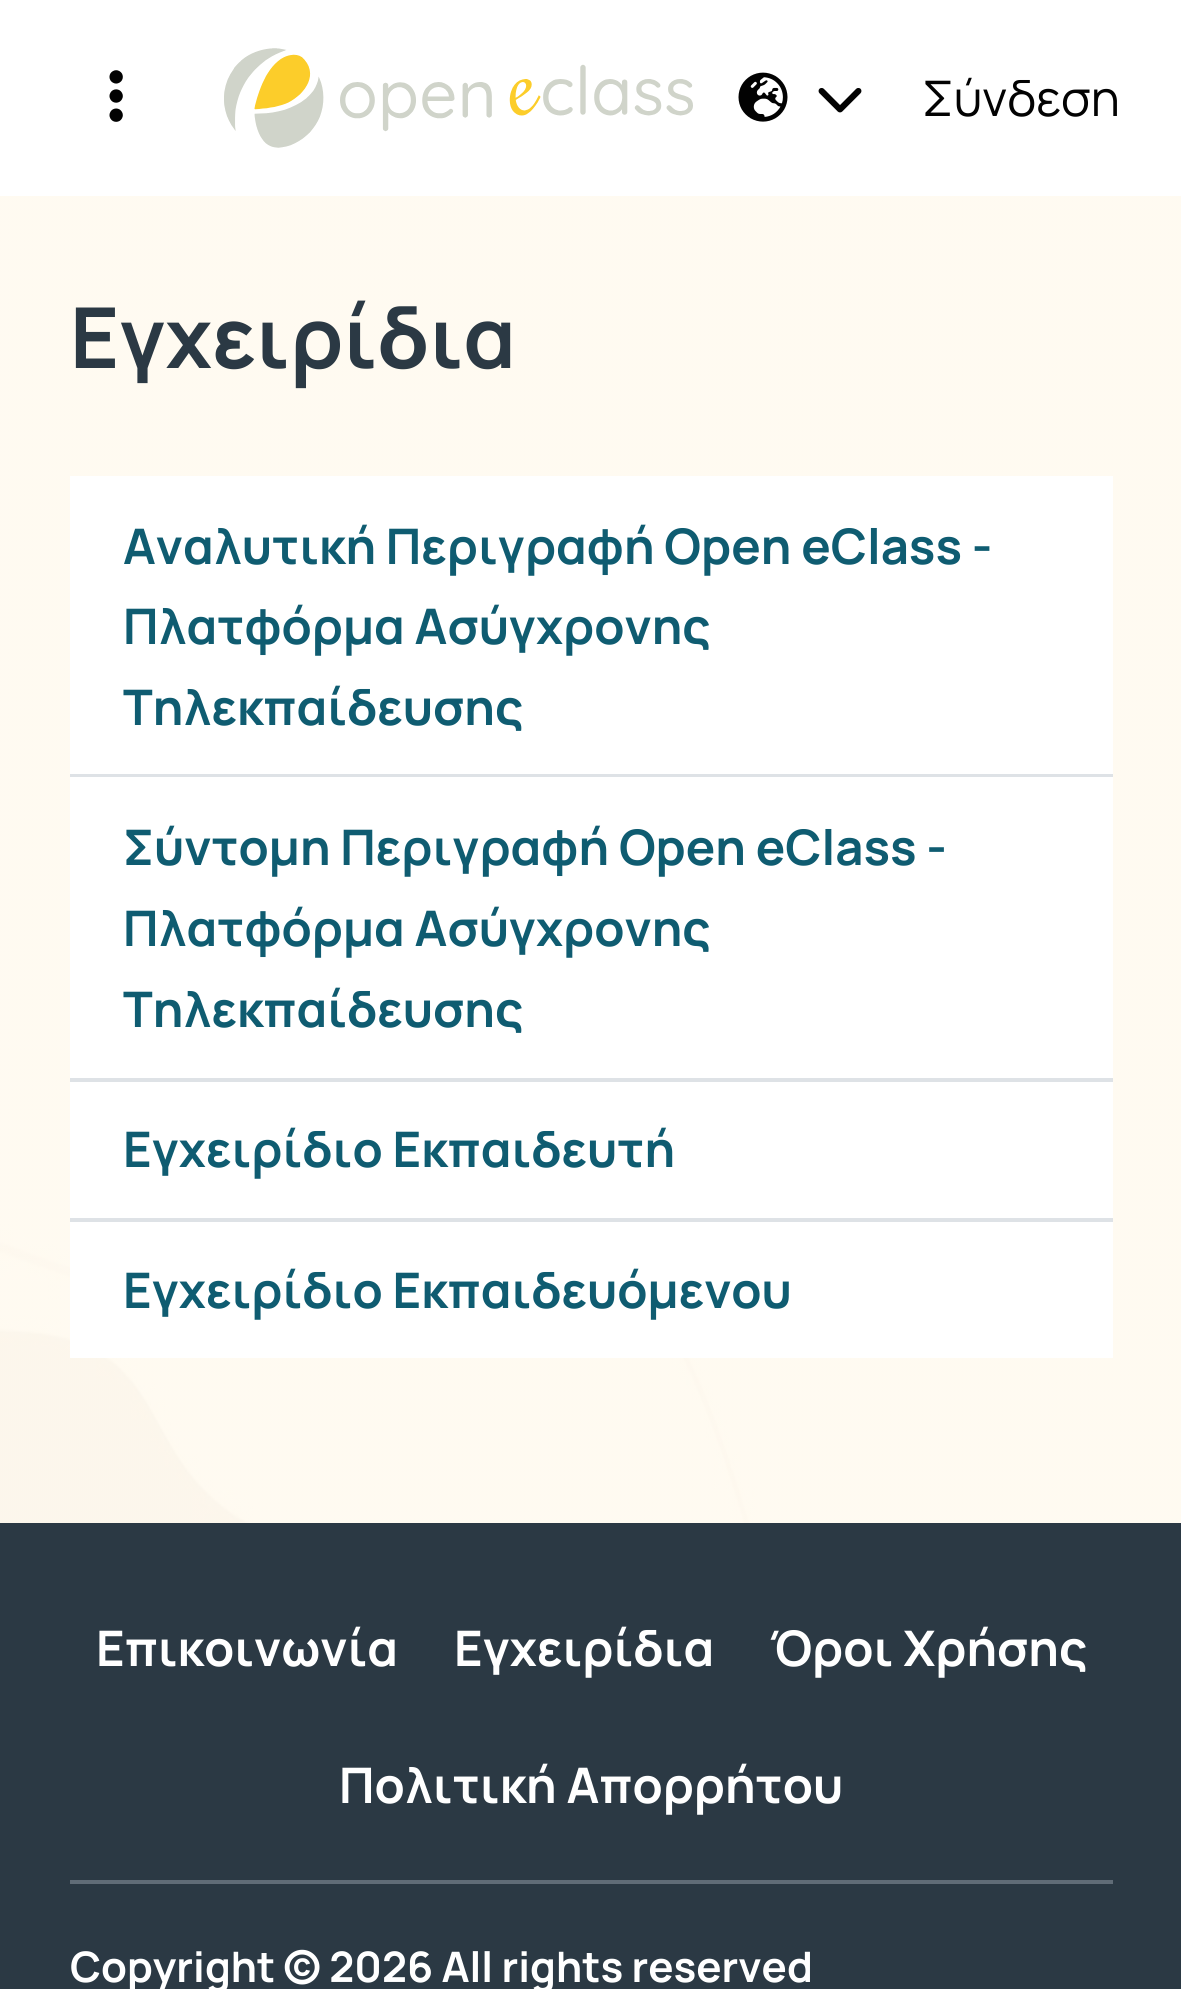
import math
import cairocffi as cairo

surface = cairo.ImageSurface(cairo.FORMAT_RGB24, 1181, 1989)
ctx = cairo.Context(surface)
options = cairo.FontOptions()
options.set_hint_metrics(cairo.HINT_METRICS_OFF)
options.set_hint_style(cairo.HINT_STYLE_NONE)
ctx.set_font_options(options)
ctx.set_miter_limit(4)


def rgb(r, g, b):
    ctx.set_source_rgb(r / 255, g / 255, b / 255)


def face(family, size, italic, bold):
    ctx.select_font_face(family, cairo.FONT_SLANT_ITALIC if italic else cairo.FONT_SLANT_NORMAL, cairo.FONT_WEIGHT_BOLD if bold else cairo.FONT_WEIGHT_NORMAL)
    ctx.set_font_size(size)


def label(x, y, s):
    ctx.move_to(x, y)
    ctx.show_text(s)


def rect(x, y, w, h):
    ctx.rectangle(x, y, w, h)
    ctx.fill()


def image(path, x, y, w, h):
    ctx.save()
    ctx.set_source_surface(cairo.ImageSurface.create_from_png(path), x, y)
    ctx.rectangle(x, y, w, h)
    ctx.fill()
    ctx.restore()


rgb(255, 255, 255)
ctx.paint()
image('image0.png', 0, 196, 1181, 1327)
image('image1.png', 109, 70, 14, 52)
image('image2.png', 224, 48, 469, 100)
image('image3.png', 738, 72, 50, 50)
image('image4.png', 818, 88, 44, 25)
face('Manrope', 49, 0, 0)
rgb(2, 2, 2)
label(922, 116, 'Σύνδεση')
face('Manrope', 84, 0, 1)
rgb(43, 57, 68)
label(70, 368, 'Εγχειρίδια')
rgb(255, 255, 255)
rect(70, 476, 1043, 298)
rgb(222, 226, 230)
rect(70, 774, 1043, 3)
face('Manrope', 49, 0, 1)
rgb(15, 92, 113)
label(123, 564, 'Αναλυτική Περιγραφή Open eClass -')
label(123, 644, 'Πλατφόρμα Ασύγχρονης')
label(123, 725, 'Τηλεκπαίδευσης')
rgb(255, 255, 255)
rect(70, 777, 1043, 301)
rgb(222, 226, 230)
rect(70, 1078, 1043, 4)
rgb(15, 92, 113)
label(123, 865, 'Σύντομη Περιγραφή Open eClass -')
label(123, 946, 'Πλατφόρμα Ασύγχρονης')
label(123, 1027, 'Τηλεκπαίδευσης')
rgb(255, 255, 255)
rect(70, 1082, 1043, 136)
rgb(222, 226, 230)
rect(70, 1218, 1043, 4)
rgb(15, 92, 113)
label(123, 1167, 'Εγχειρίδιο Εκπαιδευτή')
rgb(255, 255, 255)
rect(70, 1222, 1043, 136)
rgb(15, 92, 113)
label(123, 1308, 'Εγχειρίδιο Εκπαιδευόμενου')
rgb(43, 57, 68)
rect(0, 1523, 1181, 466)
rgb(255, 255, 255)
label(96, 1666, 'Επικοινωνία')
label(454, 1666, 'Εγχειρίδια')
label(770, 1666, 'Όροι Χρήσης')
label(339, 1803, 'Πολιτική Απορρήτου')
rgb(96, 108, 119)
rect(70, 1880, 1043, 4)
face('Manrope', 42, 0, 1)
rgb(255, 255, 255)
label(70, 1982, 'Copyright © 2026 All rights reserved')
surface.write_to_png('render.png')
